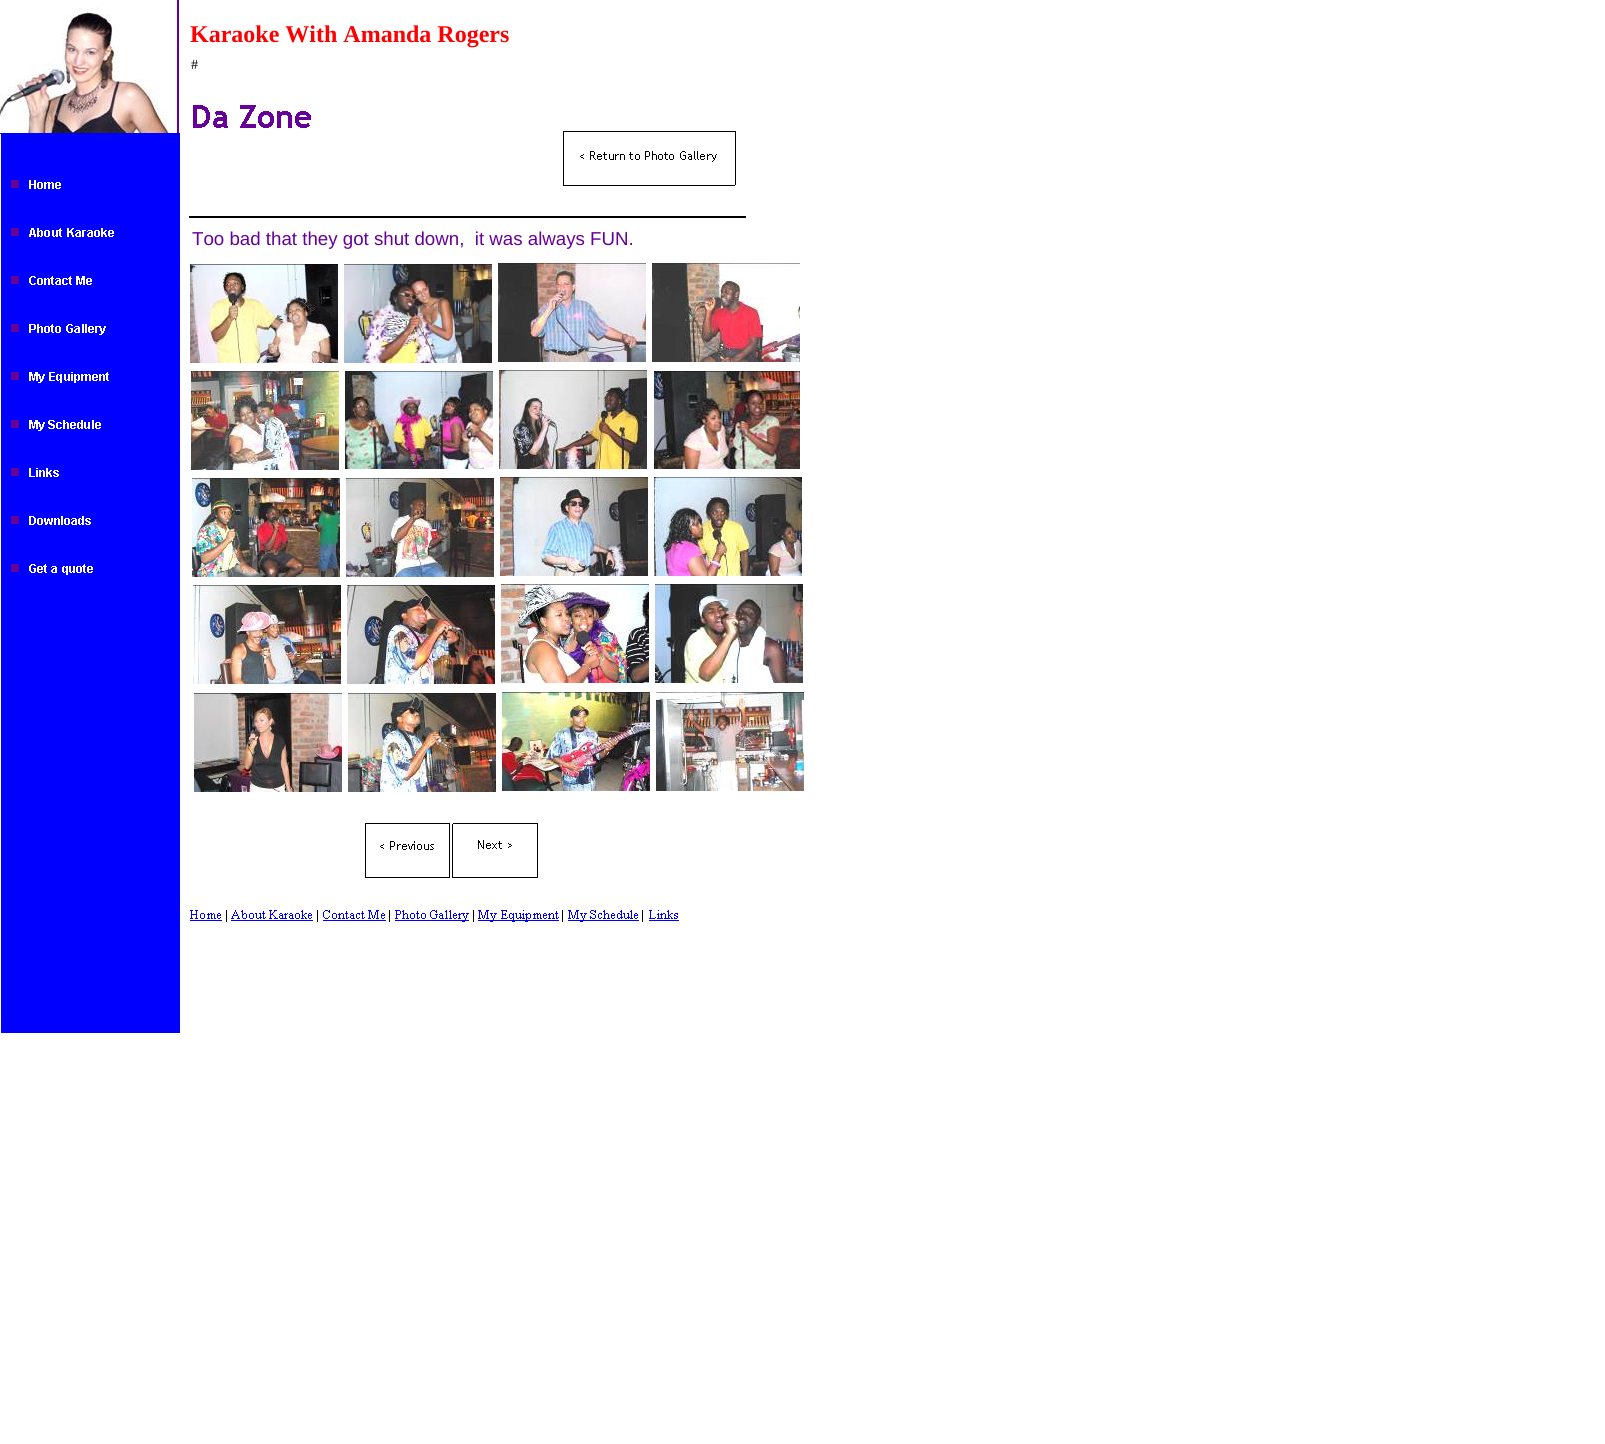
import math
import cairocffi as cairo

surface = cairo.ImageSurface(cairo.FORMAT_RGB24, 1605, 1444)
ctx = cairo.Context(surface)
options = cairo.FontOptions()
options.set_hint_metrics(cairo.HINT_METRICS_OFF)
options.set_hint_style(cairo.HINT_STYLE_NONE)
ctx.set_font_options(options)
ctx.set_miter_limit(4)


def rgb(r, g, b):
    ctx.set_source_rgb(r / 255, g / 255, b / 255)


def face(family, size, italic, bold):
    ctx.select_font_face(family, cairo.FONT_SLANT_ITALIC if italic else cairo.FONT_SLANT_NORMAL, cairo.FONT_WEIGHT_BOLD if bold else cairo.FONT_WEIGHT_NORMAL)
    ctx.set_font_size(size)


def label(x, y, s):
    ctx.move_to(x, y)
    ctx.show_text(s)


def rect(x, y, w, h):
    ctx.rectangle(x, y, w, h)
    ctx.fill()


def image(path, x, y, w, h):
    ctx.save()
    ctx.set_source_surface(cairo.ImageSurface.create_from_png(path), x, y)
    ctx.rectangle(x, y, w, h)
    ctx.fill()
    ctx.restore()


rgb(255, 255, 255)
ctx.paint()
rgb(102, 0, 153)
rect(0, 0, 179, 134)
image('image0.png', 0, 0, 177, 133)
face('Liberation Serif', 24, 0, 1)
rgb(255, 0, 0)
label(190, 42, 'Karaoke With Amanda Rogers')
face('Liberation Serif', 14, 0, 0)
rgb(0, 0, 0)
label(191, 69, '#')
image('image1.png', 193, 105, 118, 23)
rgb(0, 0, 255)
rect(1, 133, 179, 900)
image('image2.png', 563, 131, 173, 55)
image('image3.png', 11, 180, 103, 395)
rgb(0, 0, 0)
rect(189, 216, 557, 2)
face('Liberation Sans', 18.7, 0, 0)
rgb(102, 0, 153)
label(192, 245, 'Too bad that they got shut down,  it was always FUN.')
image('image4.png', 190, 264, 148, 99)
image('image5.png', 344, 264, 148, 99)
image('image6.png', 498, 263, 148, 99)
image('image7.png', 652, 263, 148, 99)
image('image8.png', 191, 371, 148, 99)
image('image9.png', 345, 371, 148, 98)
image('image10.png', 499, 370, 148, 99)
image('image11.png', 654, 371, 146, 98)
image('image12.png', 192, 478, 148, 99)
image('image13.png', 346, 478, 148, 99)
image('image14.png', 500, 477, 148, 99)
image('image15.png', 654, 477, 148, 99)
image('image16.png', 193, 585, 148, 99)
image('image17.png', 347, 585, 148, 99)
image('image18.png', 501, 584, 148, 99)
image('image19.png', 655, 584, 148, 99)
image('image20.png', 194, 693, 148, 99)
image('image21.png', 348, 693, 148, 99)
image('image22.png', 502, 692, 148, 99)
image('image23.png', 656, 692, 148, 99)
image('image24.png', 365, 823, 85, 55)
image('image25.png', 452, 823, 86, 55)
image('image26.png', 190, 910, 489, 12)
surface.write_to_png('render.png')
